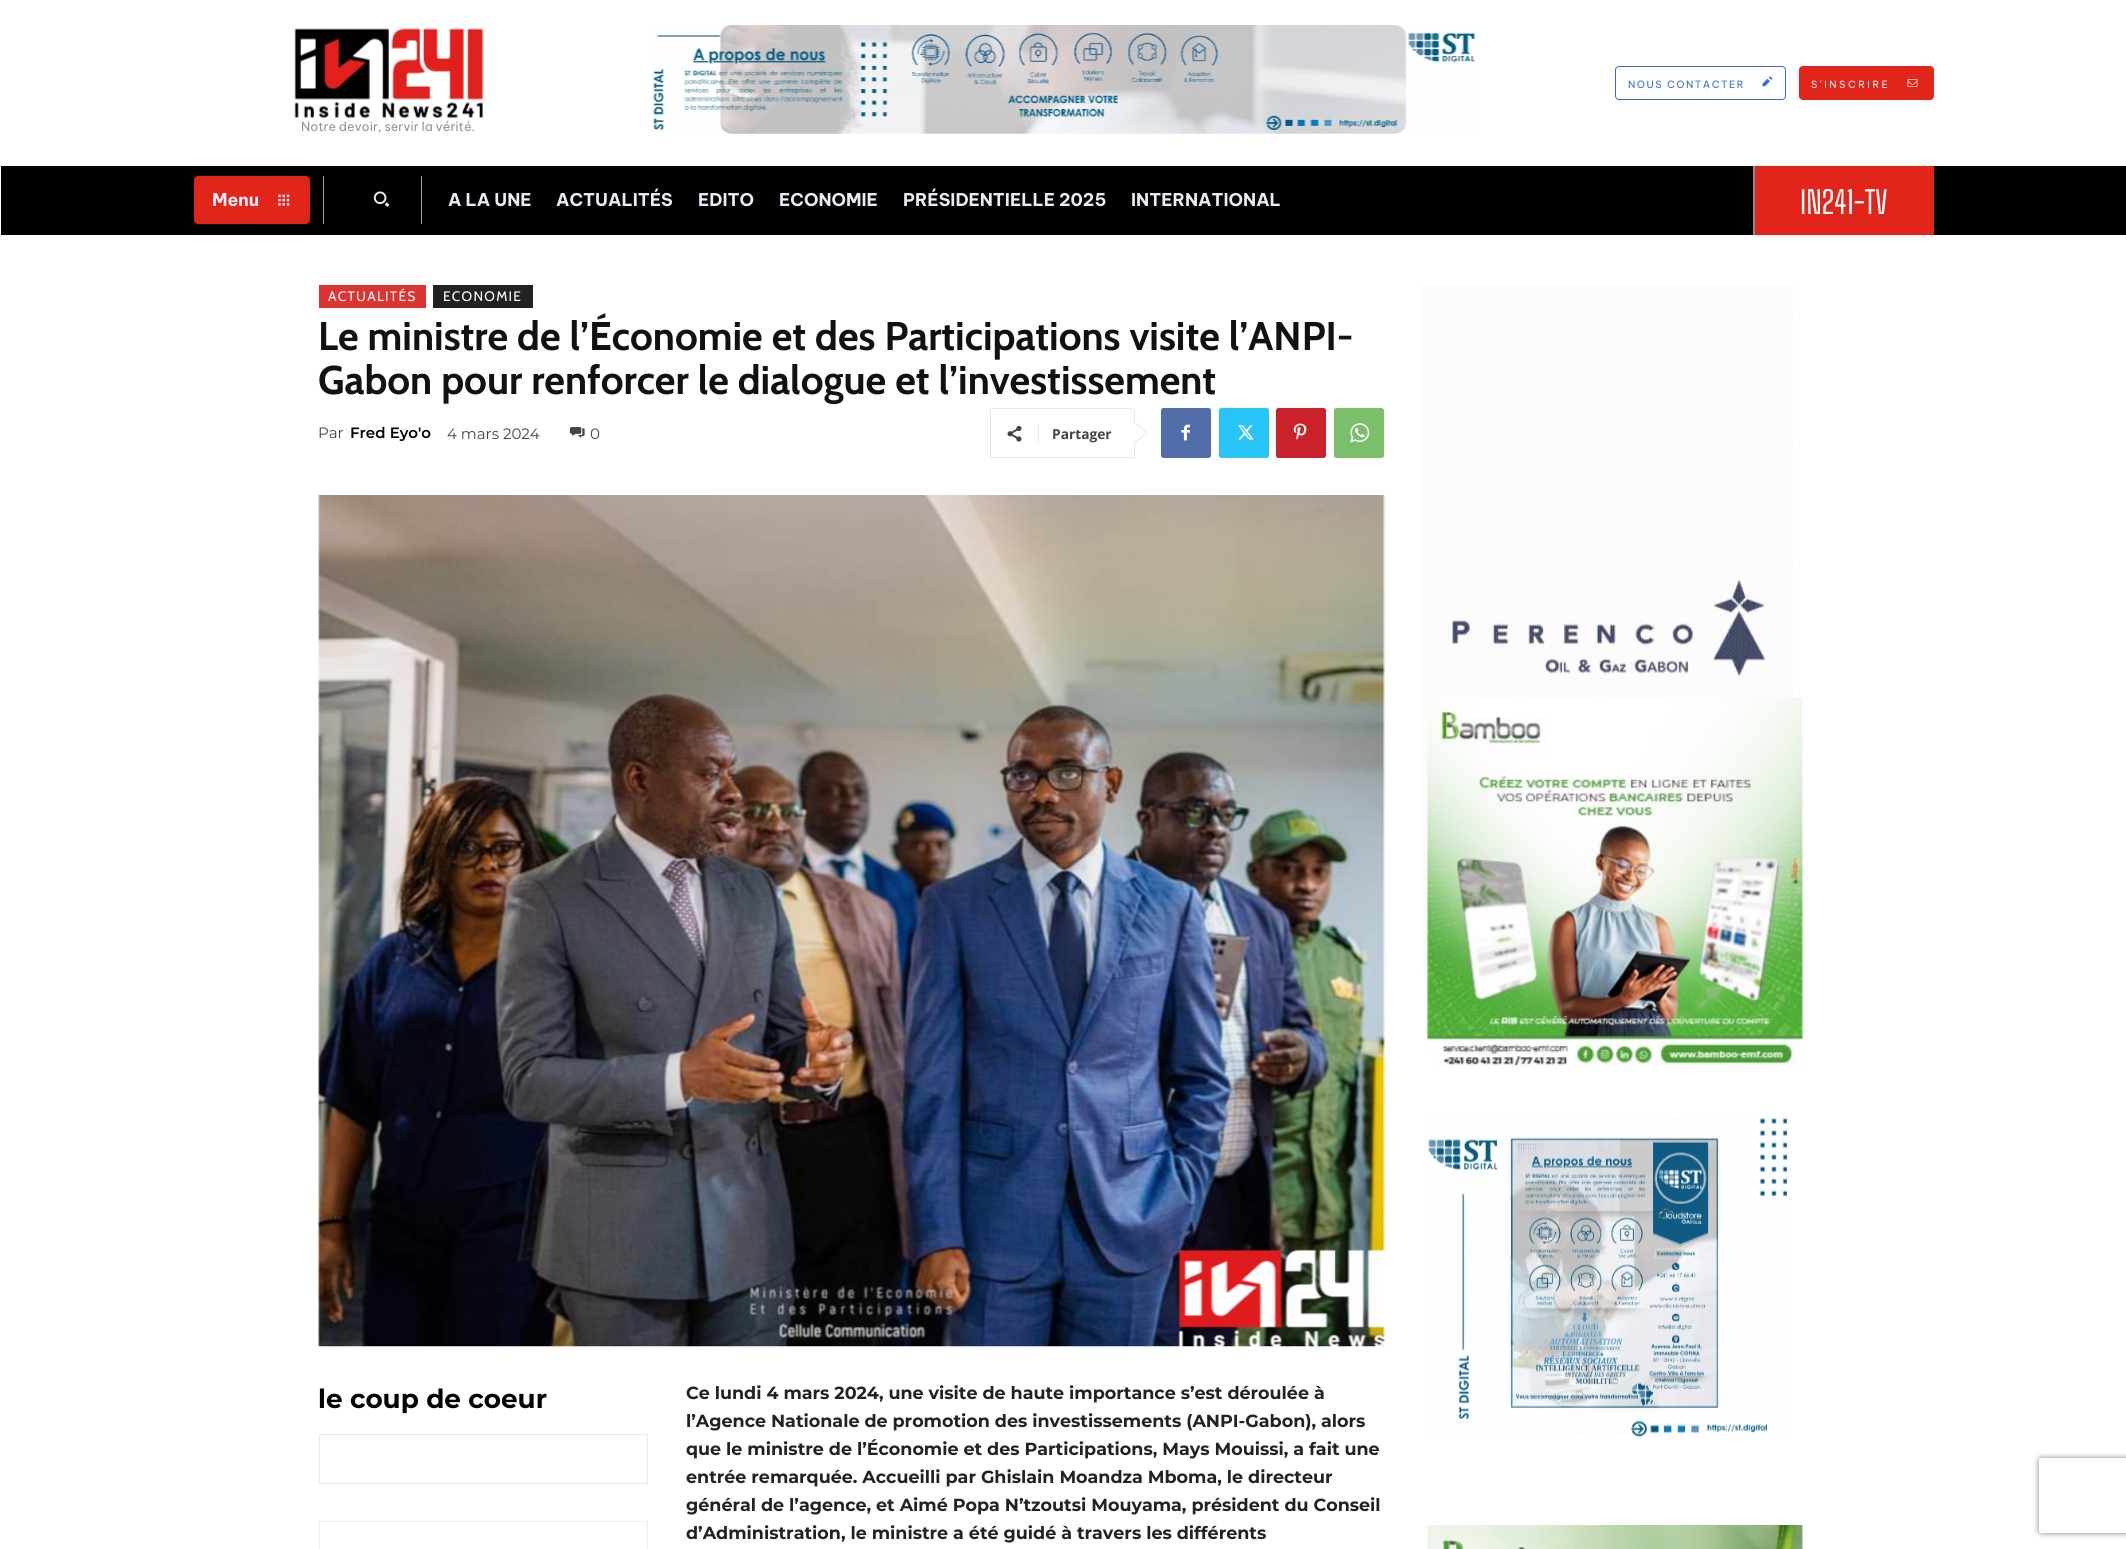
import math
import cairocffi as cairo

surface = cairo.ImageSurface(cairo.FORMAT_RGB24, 2126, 1549)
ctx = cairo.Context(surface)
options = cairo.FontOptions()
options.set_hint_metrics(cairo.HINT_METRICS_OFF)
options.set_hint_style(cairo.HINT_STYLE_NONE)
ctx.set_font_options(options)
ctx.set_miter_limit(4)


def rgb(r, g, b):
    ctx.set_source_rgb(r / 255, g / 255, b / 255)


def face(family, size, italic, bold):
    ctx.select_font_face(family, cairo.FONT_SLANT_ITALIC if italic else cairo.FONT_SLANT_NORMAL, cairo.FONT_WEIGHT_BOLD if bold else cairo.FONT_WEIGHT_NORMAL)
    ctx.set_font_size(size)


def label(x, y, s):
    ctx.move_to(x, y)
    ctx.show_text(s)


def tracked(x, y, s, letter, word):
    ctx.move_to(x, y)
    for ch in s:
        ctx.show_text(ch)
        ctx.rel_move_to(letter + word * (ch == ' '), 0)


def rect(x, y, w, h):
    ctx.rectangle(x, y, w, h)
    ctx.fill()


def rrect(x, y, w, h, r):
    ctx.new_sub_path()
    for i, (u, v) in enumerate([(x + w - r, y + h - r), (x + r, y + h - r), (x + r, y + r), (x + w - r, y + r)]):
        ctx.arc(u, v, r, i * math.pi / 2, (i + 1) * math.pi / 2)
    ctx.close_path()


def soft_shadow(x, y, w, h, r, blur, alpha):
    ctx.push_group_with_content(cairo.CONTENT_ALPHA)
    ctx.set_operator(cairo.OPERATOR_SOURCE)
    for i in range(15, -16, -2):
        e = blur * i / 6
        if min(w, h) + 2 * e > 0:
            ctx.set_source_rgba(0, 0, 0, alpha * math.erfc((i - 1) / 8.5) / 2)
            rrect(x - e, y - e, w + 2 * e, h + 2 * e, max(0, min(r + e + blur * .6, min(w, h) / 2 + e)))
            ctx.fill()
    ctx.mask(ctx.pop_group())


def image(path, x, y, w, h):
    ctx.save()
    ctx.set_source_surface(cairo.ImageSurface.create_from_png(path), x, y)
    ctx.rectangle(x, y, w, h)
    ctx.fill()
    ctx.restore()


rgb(255, 255, 255)
ctx.paint()
image('image0.png', 653, 25, 823, 109)
rrect(1615.5, 66.5, 170, 33, 3.5)
rgb(54, 107, 217)
ctx.set_line_width(1)
ctx.stroke()
face('Be Vietnam Pro', 10, 0, 0)
tracked(1628, 88, 'NOUS CONTACTER', 1.5, 0)
image('image1.png', 1762, 76, 11, 11)
rgb(225, 37, 27)
rrect(1799, 66, 135, 34, 4)
ctx.fill()
rgb(234, 236, 248)
tracked(1811, 88, 'S\'INSCRIRE', 2.5, 0)
image('image2.png', 1907, 79, 11, 8)
image('image3.png', 294, 28, 189, 90)
face('Be Vietnam Pro', 12.5, 0, 0)
rgb(145, 145, 161)
label(301, 131, 'Notre devoir, servir la vérité.')
rgb(0, 0, 0)
rect(1, 166, 2125, 69)
rgb(225, 37, 27)
rrect(194, 176, 116, 48, 4)
ctx.fill()
face('Be Vietnam Pro', 17.5, 0, 1)
rgb(234, 236, 248)
label(212, 206, 'Menu')
image('image4.png', 278, 194, 12, 12)
rgb(158, 158, 158)
rect(421, 176, 1, 48)
rect(323, 176, 1, 48)
image('image5.png', 373, 191, 17, 16)
rgb(234, 236, 248)
label(448, 206, 'A LA UNE')
label(556, 206, 'ACTUALITÉS')
label(698, 206, 'EDITO')
label(779, 206, 'ECONOMIE')
label(903, 206, 'PRÉSIDENTIELLE 2025')
label(1131, 206, 'INTERNATIONAL')
rgb(136, 136, 136)
rect(1753, 166, 2, 69)
rgb(225, 37, 27)
rect(1755, 166, 179, 69)
face('Big Shoulders Text Thin', 31, 0, 0)
rgb(255, 255, 255)
label(1800, 214, 'IN241-TV')
rgb(221, 51, 51)
rect(319, 285, 107, 23)
face('Cabin', 13.75, 0, 0)
rgb(255, 255, 255)
tracked(328, 301, 'ACTUALITÉS', 1.25, 0)
rgb(34, 34, 34)
rect(433, 285, 100, 23)
rgb(255, 255, 255)
tracked(443, 301, 'ECONOMIE', 1.25, 0)
face('Cabin', 40, 0, 1)
rgb(17, 17, 17)
label(318, 350, 'Le ministre de l’Économie et des Participations visite l’ANPI-')
label(318, 394, 'Gabon pour renforcer le dialogue et l’investissement')
face('Montserrat', 15, 0, 0)
rgb(68, 68, 68)
label(318, 438, 'Par')
face('Montserrat SemiBold', 15, 0, 0)
rgb(0, 0, 0)
label(350, 438, 'Fred Eyo\'o')
face('Montserrat', 15, 0, 0)
rgb(68, 68, 68)
label(447, 439, '4 mars 2024')
image('image6.png', 570, 427, 15, 12)
label(590, 439, '0')
rrect(990.5, 408.5, 144, 49, 2)
rgb(233, 233, 233)
ctx.stroke()
ctx.new_path()
ctx.move_to(1134, 444)
ctx.line_to(1134, 421)
ctx.line_to(1147.5, 432.5)
ctx.close_path()
ctx.fill()
image('image7.png', 1007, 425, 15, 17)
rgb(235, 235, 235)
rect(1038, 424, 1, 20)
face('Open Sans', 13.75, 0, 1)
rgb(68, 68, 68)
label(1052, 439, 'Partager')
rgb(255, 255, 255)
ctx.new_path()
ctx.move_to(1134, 442.5)
ctx.line_to(1134, 422.5)
ctx.line_to(1146, 432.5)
ctx.close_path()
ctx.fill()
rgb(81, 110, 171)
rrect(1161, 408, 50, 50, 2.5)
ctx.fill()
image('image8.png', 1181, 424, 9, 17)
rgb(41, 197, 246)
rrect(1219, 408, 50, 50, 2.5)
ctx.fill()
image('image9.png', 1238, 425, 16, 15)
rgb(202, 33, 42)
rrect(1276, 408, 50, 50, 2.5)
ctx.fill()
image('image10.png', 1293, 423, 14, 17)
rgb(123, 191, 106)
rrect(1334, 408, 50, 50, 2.5)
ctx.fill()
image('image11.png', 1350, 423, 20, 20)
image('image12.png', 318, 495, 1067, 852)
face('Montserrat', 26.25, 0, 1)
rgb(0, 0, 0)
label(318, 1408, 'le coup de coeur')
ctx.rectangle(319.5, 1434.5, 328, 49)
rgb(234, 234, 234)
ctx.stroke()
ctx.rectangle(319.5, 1521.5, 328, 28)
rgb(237, 237, 237)
ctx.stroke()
face('Montserrat', 17.5, 0, 1)
rgb(34, 34, 34)
label(686, 1399, 'Ce lundi 4 mars 2024, une visite de haute importance s’est déroulée à')
label(686, 1427, 'l’Agence Nationale de promotion des investissements (ANPI-Gabon), alors')
label(686, 1455, 'que le ministre de l’Économie et des Participations, Mays Mouissi, a fait une')
label(686, 1483, 'entrée remarquée. Accueilli par Ghislain Moandza Mboma, le directeur')
label(686, 1511, 'général de l’agence, et Aimé Popa N’tzoutsi Mouyama, président du Conseil')
label(686, 1539, 'd’Administration, le ministre a été guidé à travers les différents')
image('image13.png', 1421, 284, 372, 686)
image('image14.png', 1427, 697, 377, 375)
image('image15.png', 1428, 1117, 360, 320)
image('image16.png', 1427, 1525, 376, 24)
ctx.save()
ctx.set_fill_rule(cairo.FILL_RULE_EVEN_ODD)
ctx.new_path()
ctx.move_to(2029, 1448)
ctx.line_to(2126, 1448)
ctx.line_to(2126, 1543)
ctx.line_to(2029, 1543)
ctx.close_path()
ctx.move_to(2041.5, 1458)
ctx.line_to(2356.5, 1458)
ctx.curve_to(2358, 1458, 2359, 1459, 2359, 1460.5)
ctx.line_to(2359, 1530.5)
ctx.curve_to(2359, 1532, 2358, 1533, 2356.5, 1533)
ctx.line_to(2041.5, 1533)
ctx.curve_to(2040, 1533, 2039, 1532, 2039, 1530.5)
ctx.line_to(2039, 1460.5)
ctx.curve_to(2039, 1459, 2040, 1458, 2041.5, 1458)
ctx.close_path()
ctx.clip()
rgb(128, 128, 128)
soft_shadow(2039, 1458, 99, 75, 2.5, 3, 1)
ctx.restore()
surface.write_to_png('render.png')
